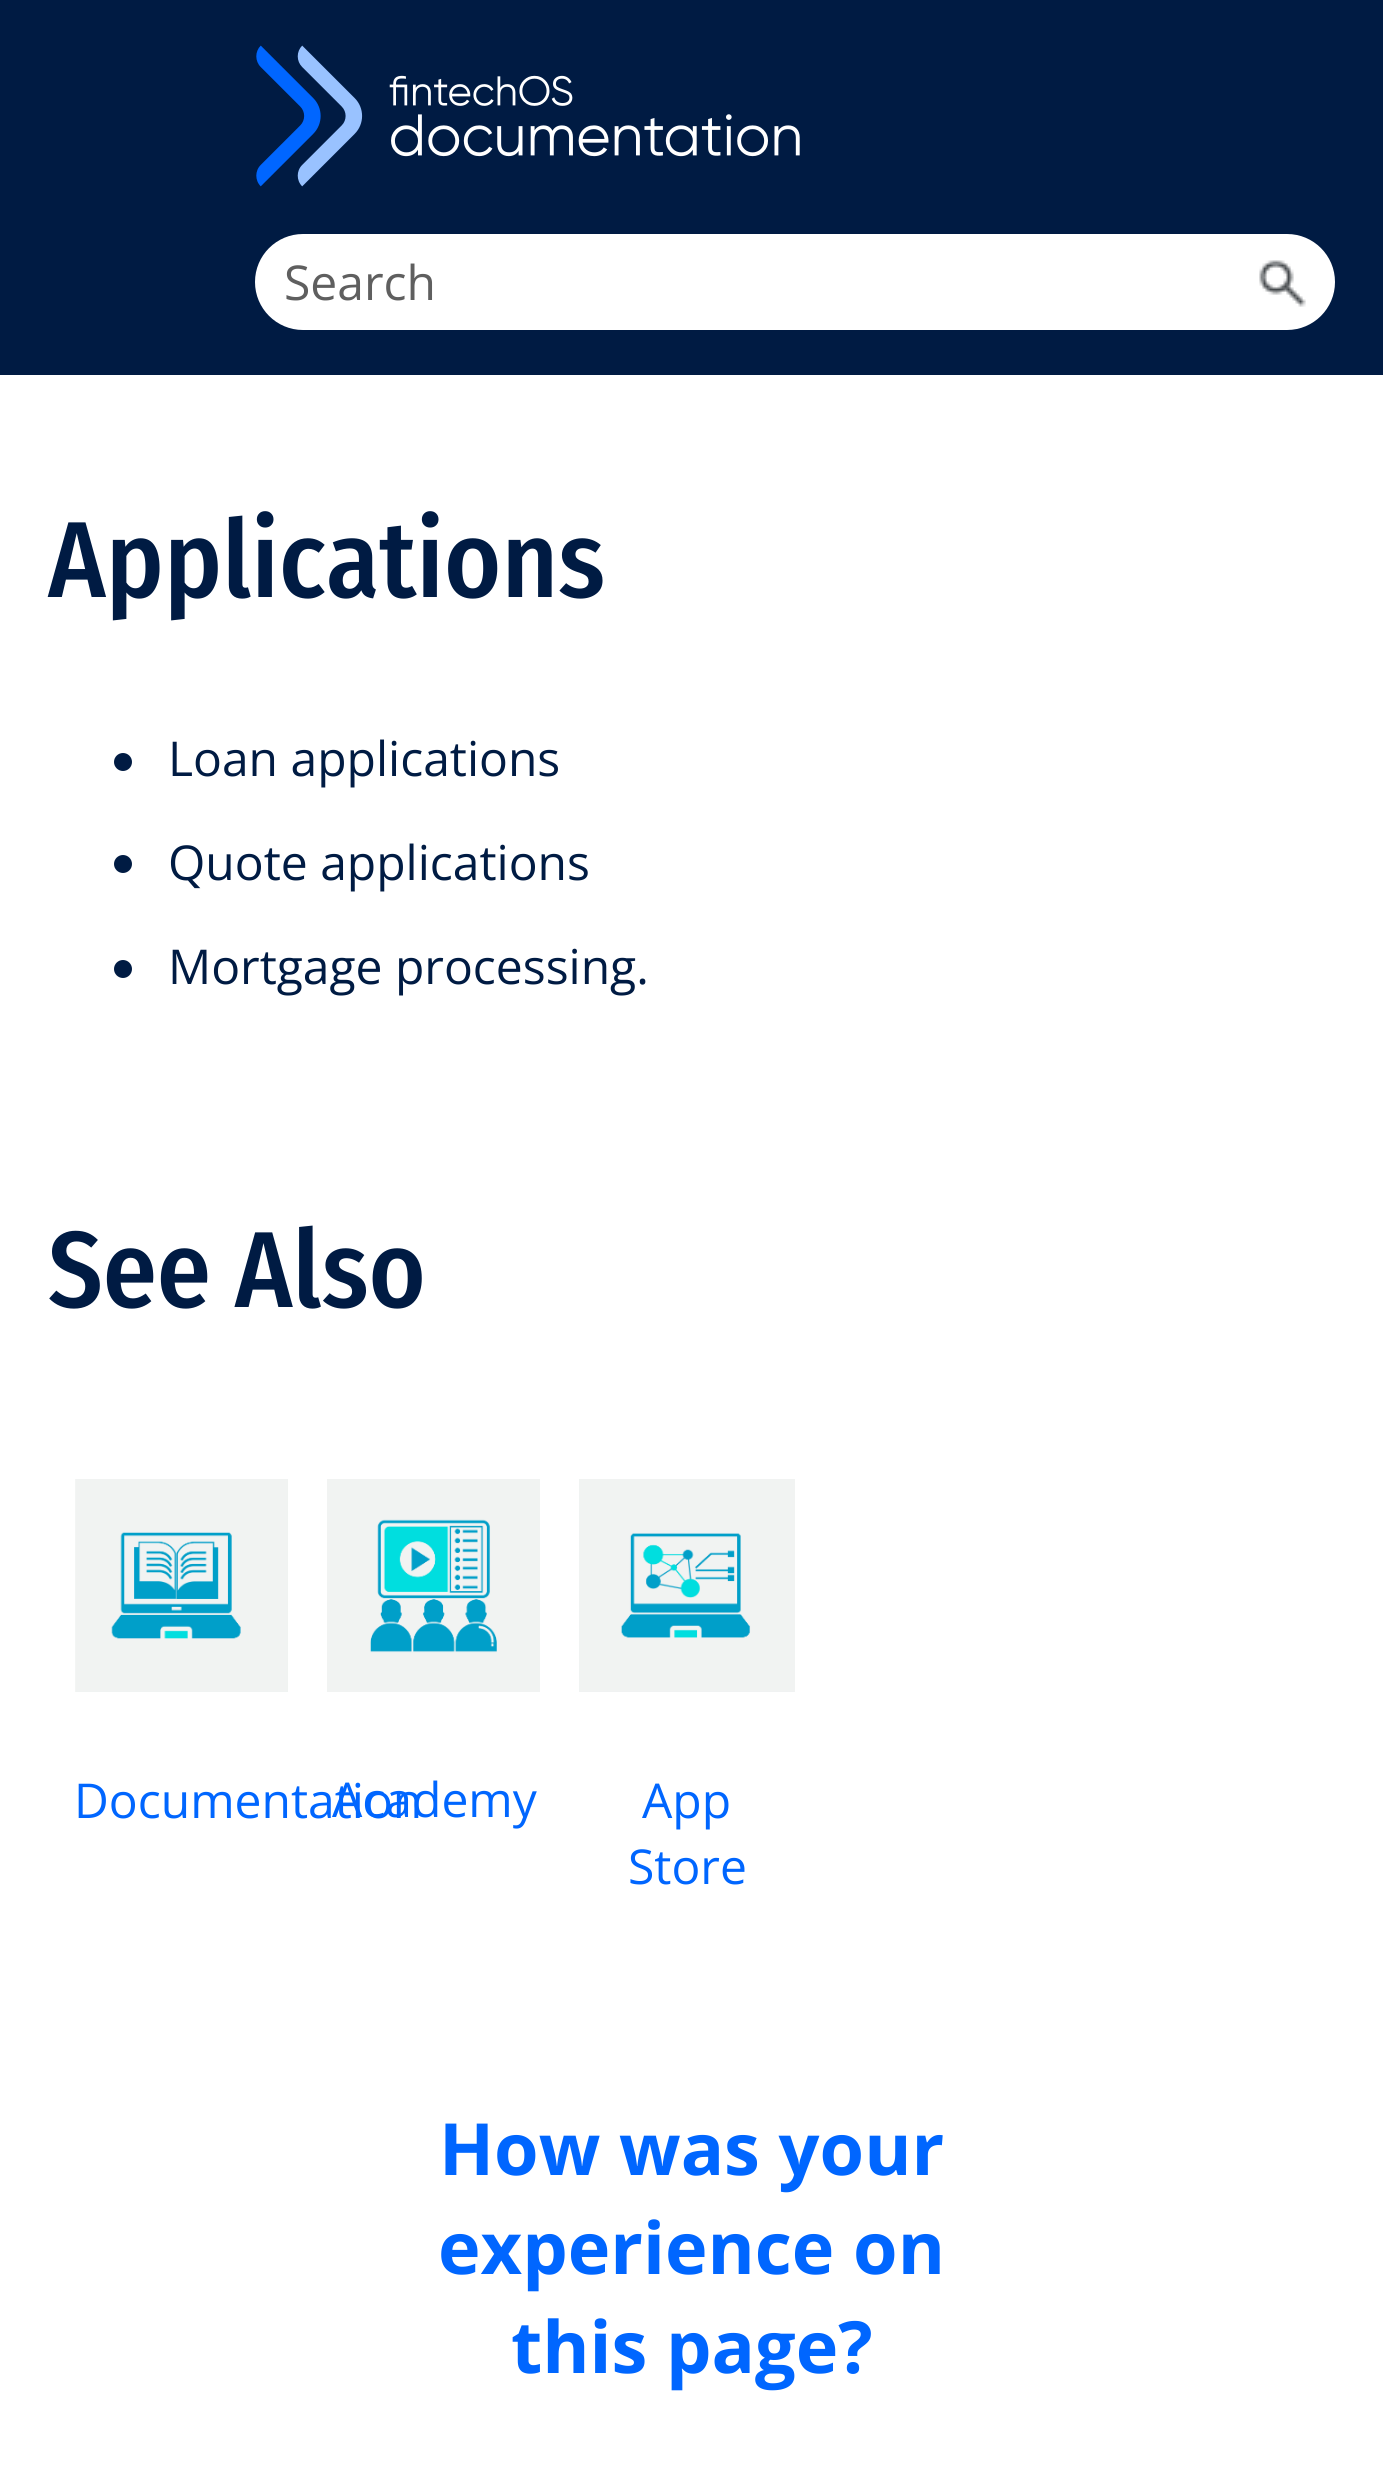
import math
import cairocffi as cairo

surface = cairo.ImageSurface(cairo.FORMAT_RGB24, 1383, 2467)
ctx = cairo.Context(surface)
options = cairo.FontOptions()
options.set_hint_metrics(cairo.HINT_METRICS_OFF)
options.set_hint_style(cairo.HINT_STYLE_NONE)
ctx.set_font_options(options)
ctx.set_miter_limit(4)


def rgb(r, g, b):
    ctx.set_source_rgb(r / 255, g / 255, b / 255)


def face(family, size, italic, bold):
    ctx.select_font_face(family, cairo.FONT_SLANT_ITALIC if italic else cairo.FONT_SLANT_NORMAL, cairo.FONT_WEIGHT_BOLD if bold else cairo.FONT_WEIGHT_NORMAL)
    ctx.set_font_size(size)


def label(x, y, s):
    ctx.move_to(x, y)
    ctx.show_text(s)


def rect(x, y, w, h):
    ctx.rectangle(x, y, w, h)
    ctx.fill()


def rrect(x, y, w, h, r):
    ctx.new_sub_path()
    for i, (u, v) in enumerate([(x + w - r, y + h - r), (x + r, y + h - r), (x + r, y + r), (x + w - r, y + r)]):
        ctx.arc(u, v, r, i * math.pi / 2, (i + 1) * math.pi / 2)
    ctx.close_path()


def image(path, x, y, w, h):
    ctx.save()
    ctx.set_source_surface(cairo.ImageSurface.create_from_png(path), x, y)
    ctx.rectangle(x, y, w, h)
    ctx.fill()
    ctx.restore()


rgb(255, 255, 255)
ctx.paint()
rgb(0, 27, 67)
rect(0, 0, 1383, 375)
image('image0.png', 256, 45, 544, 142)
rgb(255, 255, 255)
rrect(255, 234, 1080, 96, 48)
ctx.fill()
face('Open Sans', 48, 0, 0)
rgb(95, 95, 95)
label(284, 300, 'Search')
image('image1.png', 1259, 260, 47, 47)
face('Fira Sans Condensed Medium', 108, 0, 0)
rgb(0, 27, 67)
label(48, 597, 'Applications')
ctx.new_path()
ctx.arc(123, 762, 9, 0, 2 * math.pi)
ctx.fill()
face('Open Sans', 48, 0, 0)
label(168, 776, 'Loan applications')
ctx.new_path()
ctx.arc(123, 864, 9, 0, 2 * math.pi)
ctx.fill()
label(168, 880, 'Quote applications')
ctx.new_path()
ctx.arc(123, 969, 9, 0, 2 * math.pi)
ctx.fill()
label(168, 984, 'Mortgage processing.')
face('Fira Sans Condensed Medium', 108, 0, 0)
label(48, 1307, 'See Also')
image('image2.png', 75, 1479, 213, 213)
face('Open Sans', 48, 0, 0)
rgb(0, 102, 255)
label(74, 1818, 'Documentation')
image('image3.png', 327, 1479, 213, 213)
label(332, 1817, 'Academy')
image('image4.png', 579, 1479, 216, 213)
label(642, 1818, 'App')
label(628, 1884, 'Store')
face('Open Sans', 72, 0, 1)
label(439, 2175, 'How was your')
label(438, 2274, 'experience on')
label(511, 2373, 'this page?')
surface.write_to_png('render.png')
